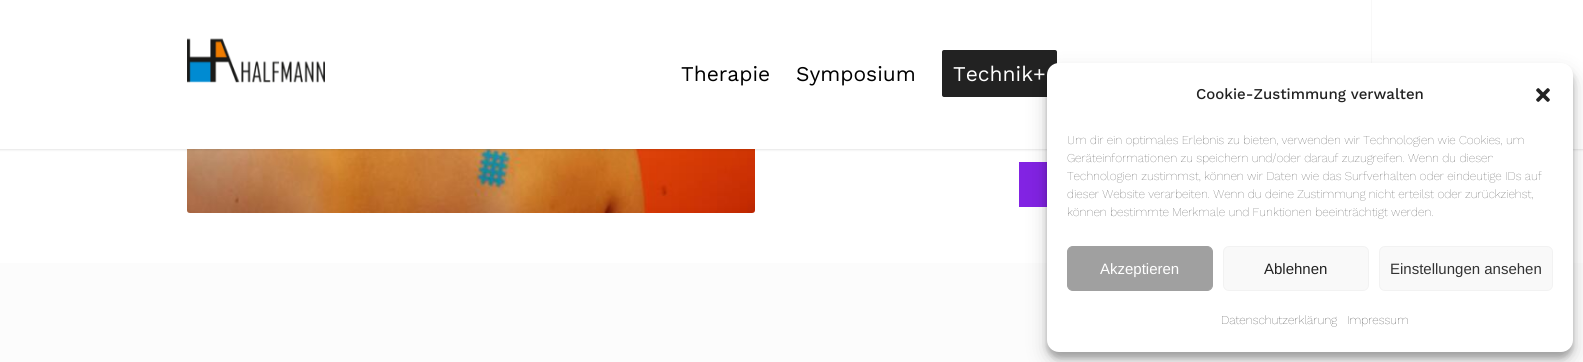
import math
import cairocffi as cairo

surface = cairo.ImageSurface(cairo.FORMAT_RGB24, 1583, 362)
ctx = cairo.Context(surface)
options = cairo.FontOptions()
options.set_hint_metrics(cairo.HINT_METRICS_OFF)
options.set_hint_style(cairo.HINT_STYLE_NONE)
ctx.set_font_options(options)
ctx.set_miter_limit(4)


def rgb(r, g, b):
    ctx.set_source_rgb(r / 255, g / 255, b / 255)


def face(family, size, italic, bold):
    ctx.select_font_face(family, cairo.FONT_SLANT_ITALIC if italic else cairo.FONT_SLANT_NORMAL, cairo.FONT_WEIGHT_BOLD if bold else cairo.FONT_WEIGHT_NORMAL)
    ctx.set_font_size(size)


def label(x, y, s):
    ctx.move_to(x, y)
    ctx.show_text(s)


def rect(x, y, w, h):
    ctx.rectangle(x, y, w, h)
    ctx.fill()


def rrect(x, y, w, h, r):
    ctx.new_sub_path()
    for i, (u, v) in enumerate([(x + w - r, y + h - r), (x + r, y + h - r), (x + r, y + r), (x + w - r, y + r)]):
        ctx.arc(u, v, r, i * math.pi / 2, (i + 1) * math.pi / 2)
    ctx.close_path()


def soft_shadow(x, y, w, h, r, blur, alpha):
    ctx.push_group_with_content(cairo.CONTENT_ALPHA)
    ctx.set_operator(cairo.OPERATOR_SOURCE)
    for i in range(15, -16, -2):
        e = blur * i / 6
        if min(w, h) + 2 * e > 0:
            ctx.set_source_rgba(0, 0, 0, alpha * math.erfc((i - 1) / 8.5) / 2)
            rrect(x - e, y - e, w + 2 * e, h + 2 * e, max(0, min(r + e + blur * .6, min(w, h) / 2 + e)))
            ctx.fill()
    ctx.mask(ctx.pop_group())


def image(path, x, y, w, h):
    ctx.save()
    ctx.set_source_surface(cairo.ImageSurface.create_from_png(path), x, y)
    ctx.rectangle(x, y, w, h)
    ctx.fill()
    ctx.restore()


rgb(255, 255, 255)
ctx.paint()
image('image1.png', 187, 149, 568, 64)
rgb(0, 0, 0)
soft_shadow(-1, -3, 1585, 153, 0, 1, 0.1)
rgb(255, 255, 255)
rect(0, 0, 1583, 149)
image('image0.png', 187, 38, 138, 45)
rgb(248, 248, 248)
rect(1371, 0, 1, 63)
face('Work Sans', 21, 0, 0)
rgb(0, 0, 0)
label(681, 81, 'Therapie')
label(796, 81, 'Symposium')
rgb(34, 34, 34)
rrect(943, 51, 113, 45, 1)
ctx.fill_preserve()
ctx.stroke()
rgb(255, 255, 255)
label(953, 81, 'Technik+')
rgb(130, 35, 227)
rect(1019, 162, 28, 45)
rgb(252, 252, 252)
rect(0, 263, 1583, 99)
rgb(0, 0, 0)
soft_shadow(1047, 69, 526, 289, 12, 3, 0.23)
soft_shadow(1047, 73, 526, 289, 12, 10, 0.19)
rgb(255, 255, 255)
rrect(1047, 63, 526, 289, 12)
ctx.fill()
face('Work Sans Medium', 15, 0, 0)
rgb(34, 34, 34)
label(1196, 99, 'Cookie-Zustimmung verwalten')
image('image2.png', 1536, 88, 14, 14)
face('Work Sans Thin', 12, 0, 0)
label(1067, 144, 'Um dir ein optimales Erlebnis zu bieten, verwenden wir Technologien wie Cookies, um')
label(1067, 162, 'Geräteinformationen zu speichern und/oder darauf zuzugreifen. Wenn du diesen')
label(1067, 180, 'Technologien zustimmst, können wir Daten wie das Surfverhalten oder eindeutige IDs auf')
label(1067, 198, 'dieser Website verarbeiten. Wenn du deine Zustimmung nicht erteilst oder zurückziehst,')
label(1067, 216, 'können bestimmte Merkmale und Funktionen beeinträchtigt werden.')
rgb(160, 160, 160)
rrect(1067.5, 246.5, 145, 44, 5.5)
ctx.fill_preserve()
ctx.set_line_width(1)
ctx.stroke()
face('Liberation Sans', 15, 0, 0)
rgb(255, 255, 255)
label(1100, 274, 'Akzeptieren')
rgb(249, 249, 249)
rrect(1223.5, 246.5, 145, 44, 5.5)
ctx.fill_preserve()
rgb(242, 242, 242)
ctx.stroke()
rgb(34, 34, 34)
label(1264, 274, 'Ablehnen')
rgb(249, 249, 249)
rrect(1379.5, 246.5, 173, 44, 5.5)
ctx.fill_preserve()
rgb(242, 242, 242)
ctx.stroke()
rgb(51, 51, 51)
label(1390, 274, 'Einstellungen ansehen')
face('Work Sans Thin', 12, 0, 0)
rgb(0, 0, 0)
label(1221, 324, 'Datenschutzerklärung')
label(1347, 324, 'Impressum')
surface.write_to_png('render.png')
